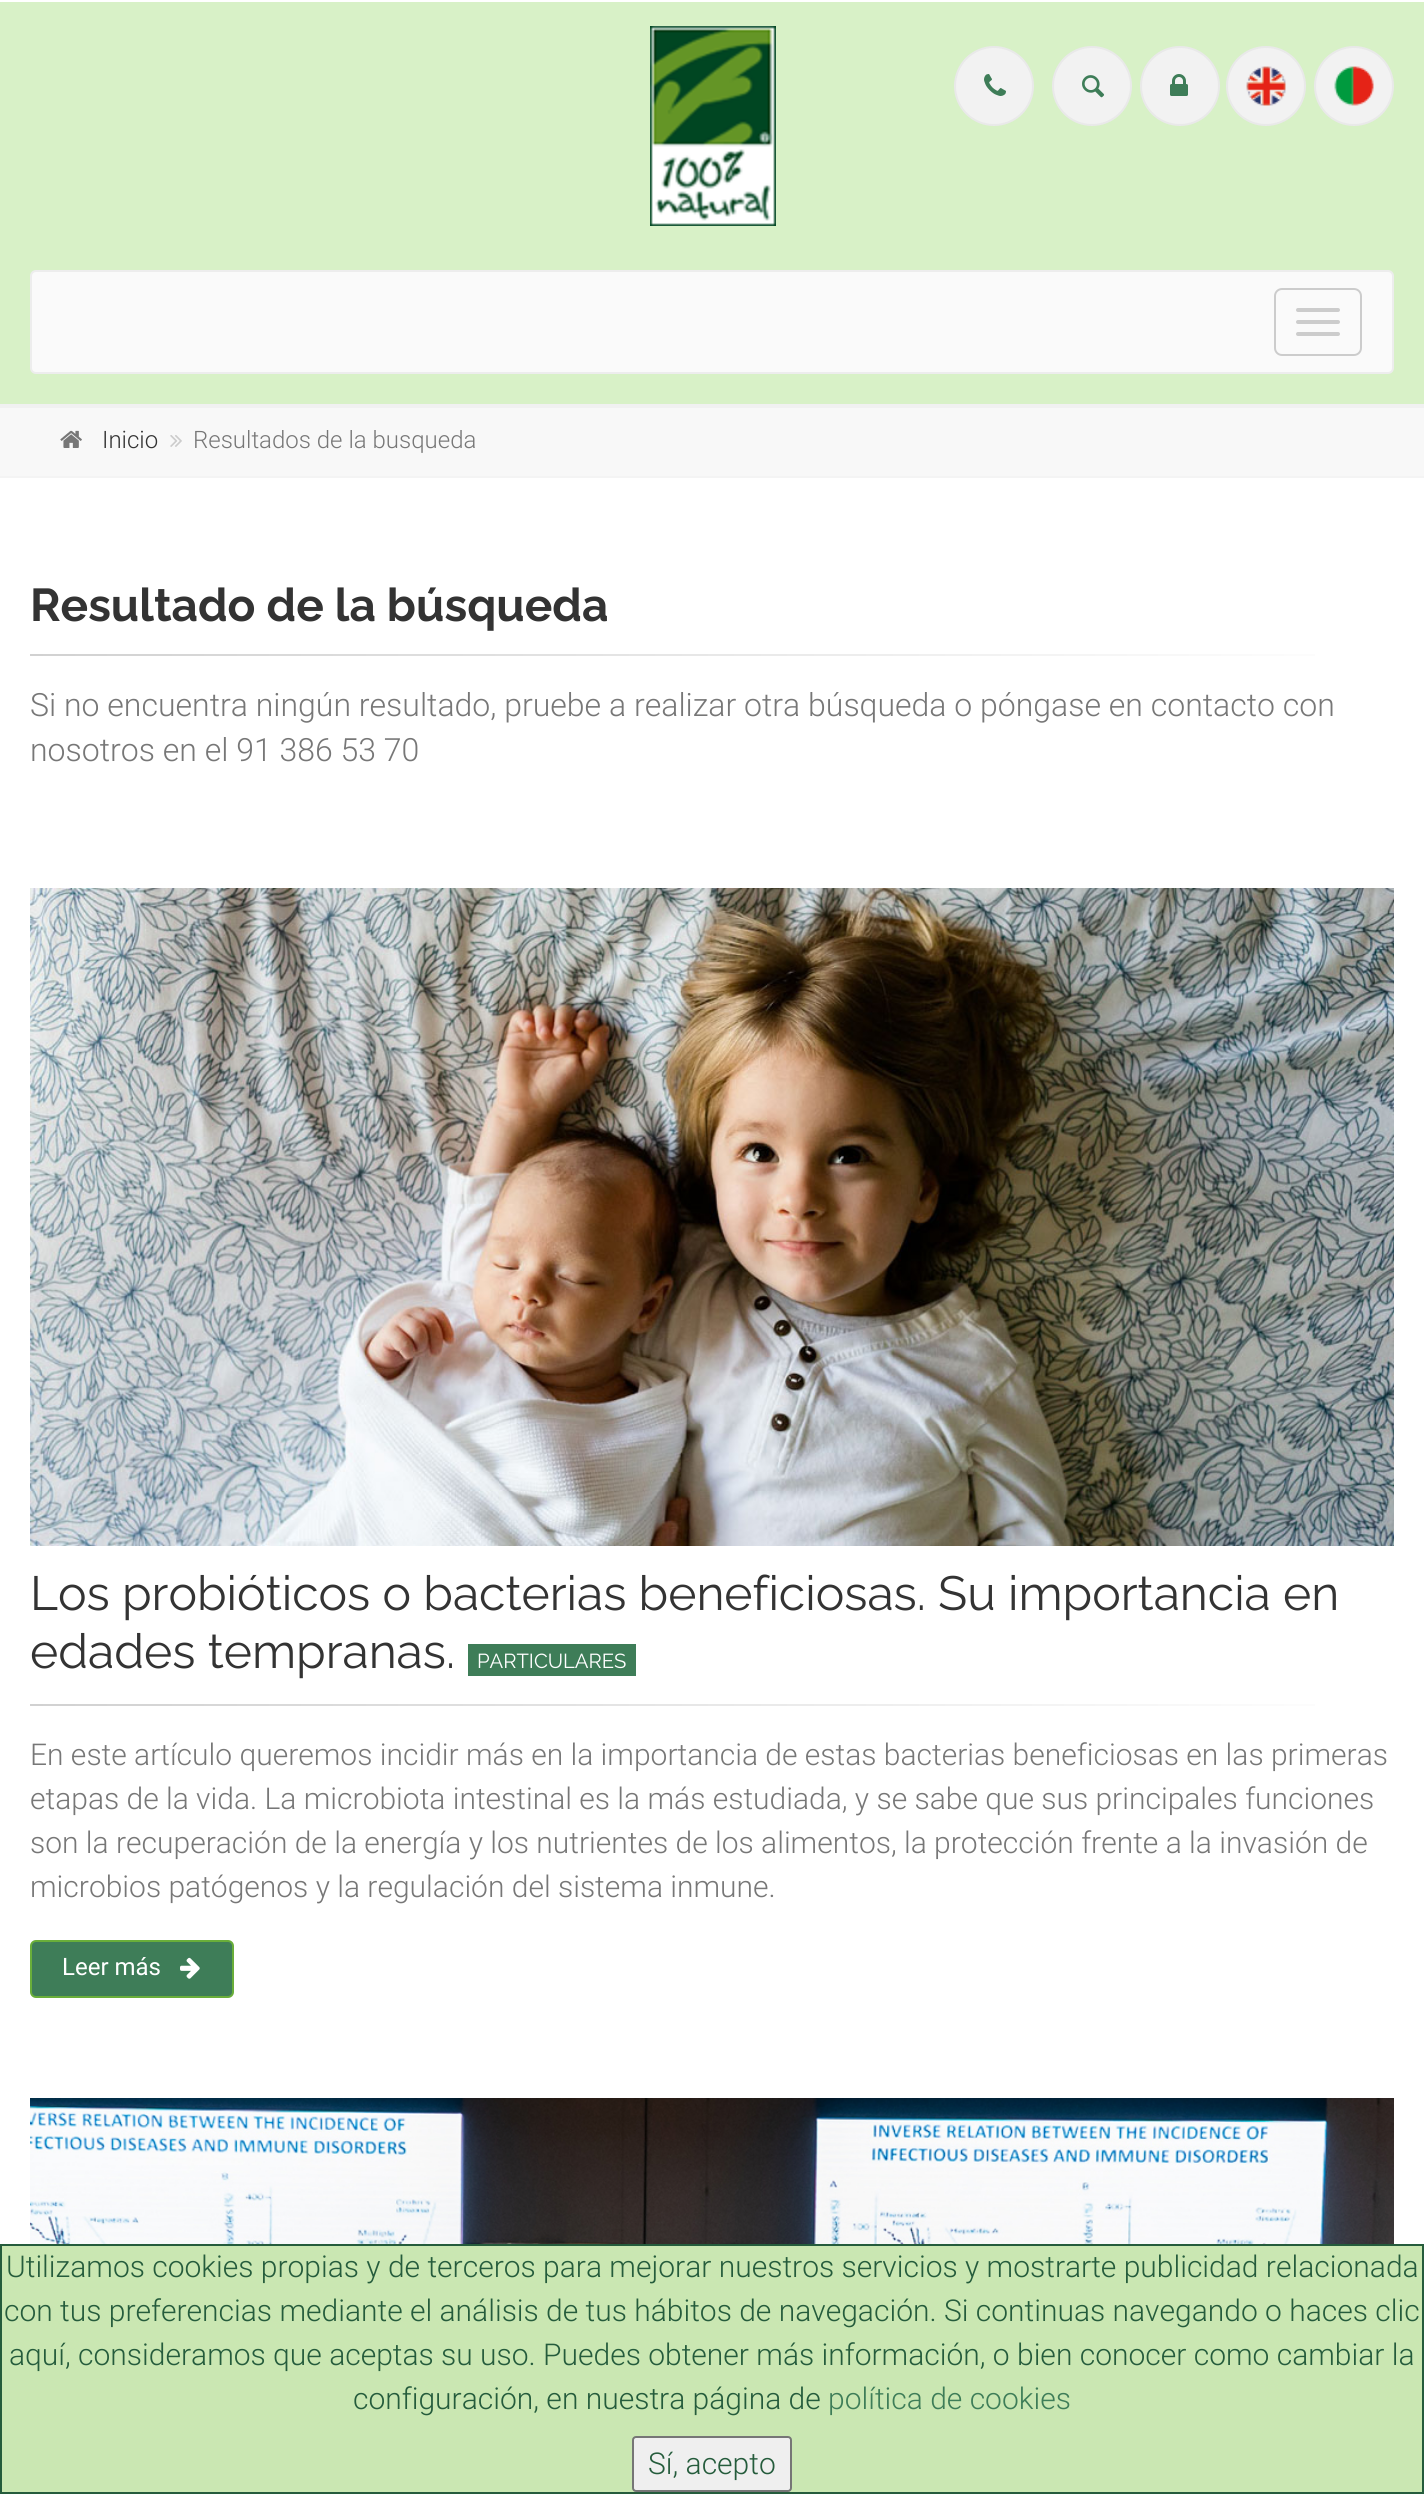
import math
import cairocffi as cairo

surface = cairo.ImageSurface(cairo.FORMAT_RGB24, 1424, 2494)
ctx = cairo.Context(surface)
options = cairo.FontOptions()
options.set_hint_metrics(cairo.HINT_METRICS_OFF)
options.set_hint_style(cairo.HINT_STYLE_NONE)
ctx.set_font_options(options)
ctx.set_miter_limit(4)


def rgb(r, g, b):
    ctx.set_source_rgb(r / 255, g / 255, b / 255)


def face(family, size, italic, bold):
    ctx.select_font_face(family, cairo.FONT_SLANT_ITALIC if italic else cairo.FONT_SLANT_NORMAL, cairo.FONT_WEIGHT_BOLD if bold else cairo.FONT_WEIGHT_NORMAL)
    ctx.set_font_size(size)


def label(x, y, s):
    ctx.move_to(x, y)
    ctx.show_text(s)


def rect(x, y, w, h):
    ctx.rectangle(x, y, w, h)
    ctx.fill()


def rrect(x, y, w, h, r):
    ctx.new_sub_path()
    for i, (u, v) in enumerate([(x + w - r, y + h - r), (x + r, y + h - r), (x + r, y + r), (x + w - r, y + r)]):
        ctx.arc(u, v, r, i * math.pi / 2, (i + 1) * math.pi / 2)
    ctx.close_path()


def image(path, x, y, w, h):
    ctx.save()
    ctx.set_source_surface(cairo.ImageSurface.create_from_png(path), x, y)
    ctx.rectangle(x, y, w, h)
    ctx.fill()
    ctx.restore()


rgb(255, 255, 255)
ctx.paint()
rgb(216, 241, 199)
rect(0, 2, 1424, 402)
rgb(241, 241, 241)
rect(0, 404, 1424, 4)
image('image0.png', 650, 26, 126, 200)
rgb(242, 242, 242)
ctx.arc(994, 86, 39, 0, 2 * math.pi)
ctx.fill_preserve()
rgb(233, 233, 233)
ctx.stroke()
image('image1.png', 984, 74, 22, 22)
rgb(242, 242, 242)
ctx.arc(1092, 86, 39, 0, 2 * math.pi)
ctx.fill_preserve()
rgb(233, 233, 233)
ctx.stroke()
image('image2.png', 1082, 75, 23, 23)
rgb(242, 242, 242)
ctx.arc(1180, 86, 39, 0, 2 * math.pi)
ctx.fill_preserve()
rgb(233, 233, 233)
ctx.stroke()
image('image3.png', 1170, 74, 18, 22)
rgb(242, 242, 242)
ctx.arc(1266, 86, 39, 0, 2 * math.pi)
ctx.fill_preserve()
rgb(233, 233, 233)
ctx.stroke()
image('image4.png', 1246, 66, 40, 40)
rgb(242, 242, 242)
ctx.arc(1354, 86, 39, 0, 2 * math.pi)
ctx.fill_preserve()
rgb(233, 233, 233)
ctx.stroke()
image('image5.png', 1334, 66, 40, 40)
rgb(250, 250, 250)
rrect(31, 271, 1362, 102, 5)
ctx.fill_preserve()
rgb(237, 237, 237)
ctx.stroke()
rrect(1275, 289, 86, 66, 7)
rgb(204, 204, 204)
ctx.stroke()
rrect(1296, 308, 44, 4, 2)
ctx.fill()
rrect(1296, 320, 44, 4, 2)
ctx.fill()
rrect(1296, 332, 44, 4, 2)
ctx.fill()
rgb(248, 248, 248)
rect(0, 408, 1424, 68)
rgb(244, 244, 244)
rect(0, 476, 1424, 2)
image('image6.png', 60, 430, 22, 18)
face('Roboto Light', 24, 0, 0)
rgb(51, 51, 51)
label(102, 448, 'Inicio')
image('image7.png', 170, 435, 12, 12)
rgb(119, 119, 119)
label(193, 448, 'Resultados de la busqueda')
face('Raleway', 46, 0, 1)
rgb(51, 51, 51)
label(30, 621, 'Resultado de la búsqueda')
gradient = cairo.LinearGradient(30, 655, 1394, 655)
gradient.add_color_stop_rgba(0, 0.82, 0.82, 0.82, 1)
gradient.add_color_stop_rgba(0.35, 0.878, 0.878, 0.878, 1)
gradient.add_color_stop_rgba(0.7, 0.949, 0.949, 0.949, 1)
gradient.add_color_stop_rgba(1, 1, 1, 1, 1)
ctx.set_source(gradient)
rect(30, 654, 1285, 2)
face('Roboto Light', 32, 0, 0)
rgb(119, 119, 119)
label(30, 716, 'Si no encuentra ningún resultado, pruebe a realizar otra búsqueda o póngase en contacto con')
label(30, 761, 'nosotros en el 91 386 53 70')
image('image8.png', 30, 888, 1364, 658)
face('Raleway', 48, 0, 0)
rgb(51, 51, 51)
label(30, 1610, 'Los probióticos o bacterias beneficiosas. Su importancia en')
label(30, 1668, 'edades tempranas.')
rgb(62, 125, 88)
rect(468, 1644, 168, 32)
face('Raleway', 20.25, 0, 0)
rgb(255, 255, 255)
label(477, 1668, 'PARTICULARES')
gradient = cairo.LinearGradient(30, 1705, 1394, 1705)
gradient.add_color_stop_rgba(0, 0.82, 0.82, 0.82, 1)
gradient.add_color_stop_rgba(0.35, 0.878, 0.878, 0.878, 1)
gradient.add_color_stop_rgba(0.7, 0.949, 0.949, 0.949, 1)
gradient.add_color_stop_rgba(1, 1, 1, 1, 1)
ctx.set_source(gradient)
rect(30, 1704, 1285, 2)
face('Roboto Light', 30, 0, 0)
rgb(119, 119, 119)
label(30, 1765, 'En este artículo queremos incidir más en la importancia de estas bacterias beneficiosas en las primeras')
label(30, 1809, 'etapas de la vida. La microbiota intestinal es la más estudiada, y se sabe que sus principales funciones')
label(30, 1853, 'son la recuperación de la energía y los nutrientes de los alimentos, la protección frente a la invasión de')
label(30, 1897, 'microbios patógenos y la regulación del sistema inmune.')
rgb(62, 125, 88)
rrect(31, 1941, 202, 56, 5)
ctx.fill_preserve()
rgb(105, 174, 58)
ctx.stroke()
face('Roboto', 24, 0, 0)
rgb(255, 255, 255)
label(62, 1975, 'Leer más')
image('image9.png', 180, 1957, 20, 22)
image('image10.png', 30, 2098, 1364, 146)
rgb(202, 231, 178)
ctx.rectangle(1, 2245, 1422, 248)
ctx.fill_preserve()
rgb(37, 92, 60)
ctx.stroke()
face('Roboto Light', 30, 0, 0)
label(6, 2277, 'Utilizamos cookies propias y de terceros para mejorar nuestros servicios y mostrarte publicidad relacionada')
label(4, 2321, 'con tus preferencias mediante el análisis de tus hábitos de navegación. Si continuas navegando o haces clic')
label(9, 2365, 'aquí, consideramos que aceptas su uso. Puedes obtener más información, o bien conocer como cambiar la')
label(353, 2409, 'configuración, en nuestra página de')
rgb(62, 125, 88)
label(828, 2409, 'política de cookies')
rgb(239, 239, 239)
rrect(633, 2437, 158, 54, 3)
ctx.fill_preserve()
rgb(118, 118, 118)
ctx.stroke()
rgb(37, 92, 60)
label(648, 2474, 'Sí, acepto')
surface.write_to_png('render.png')
